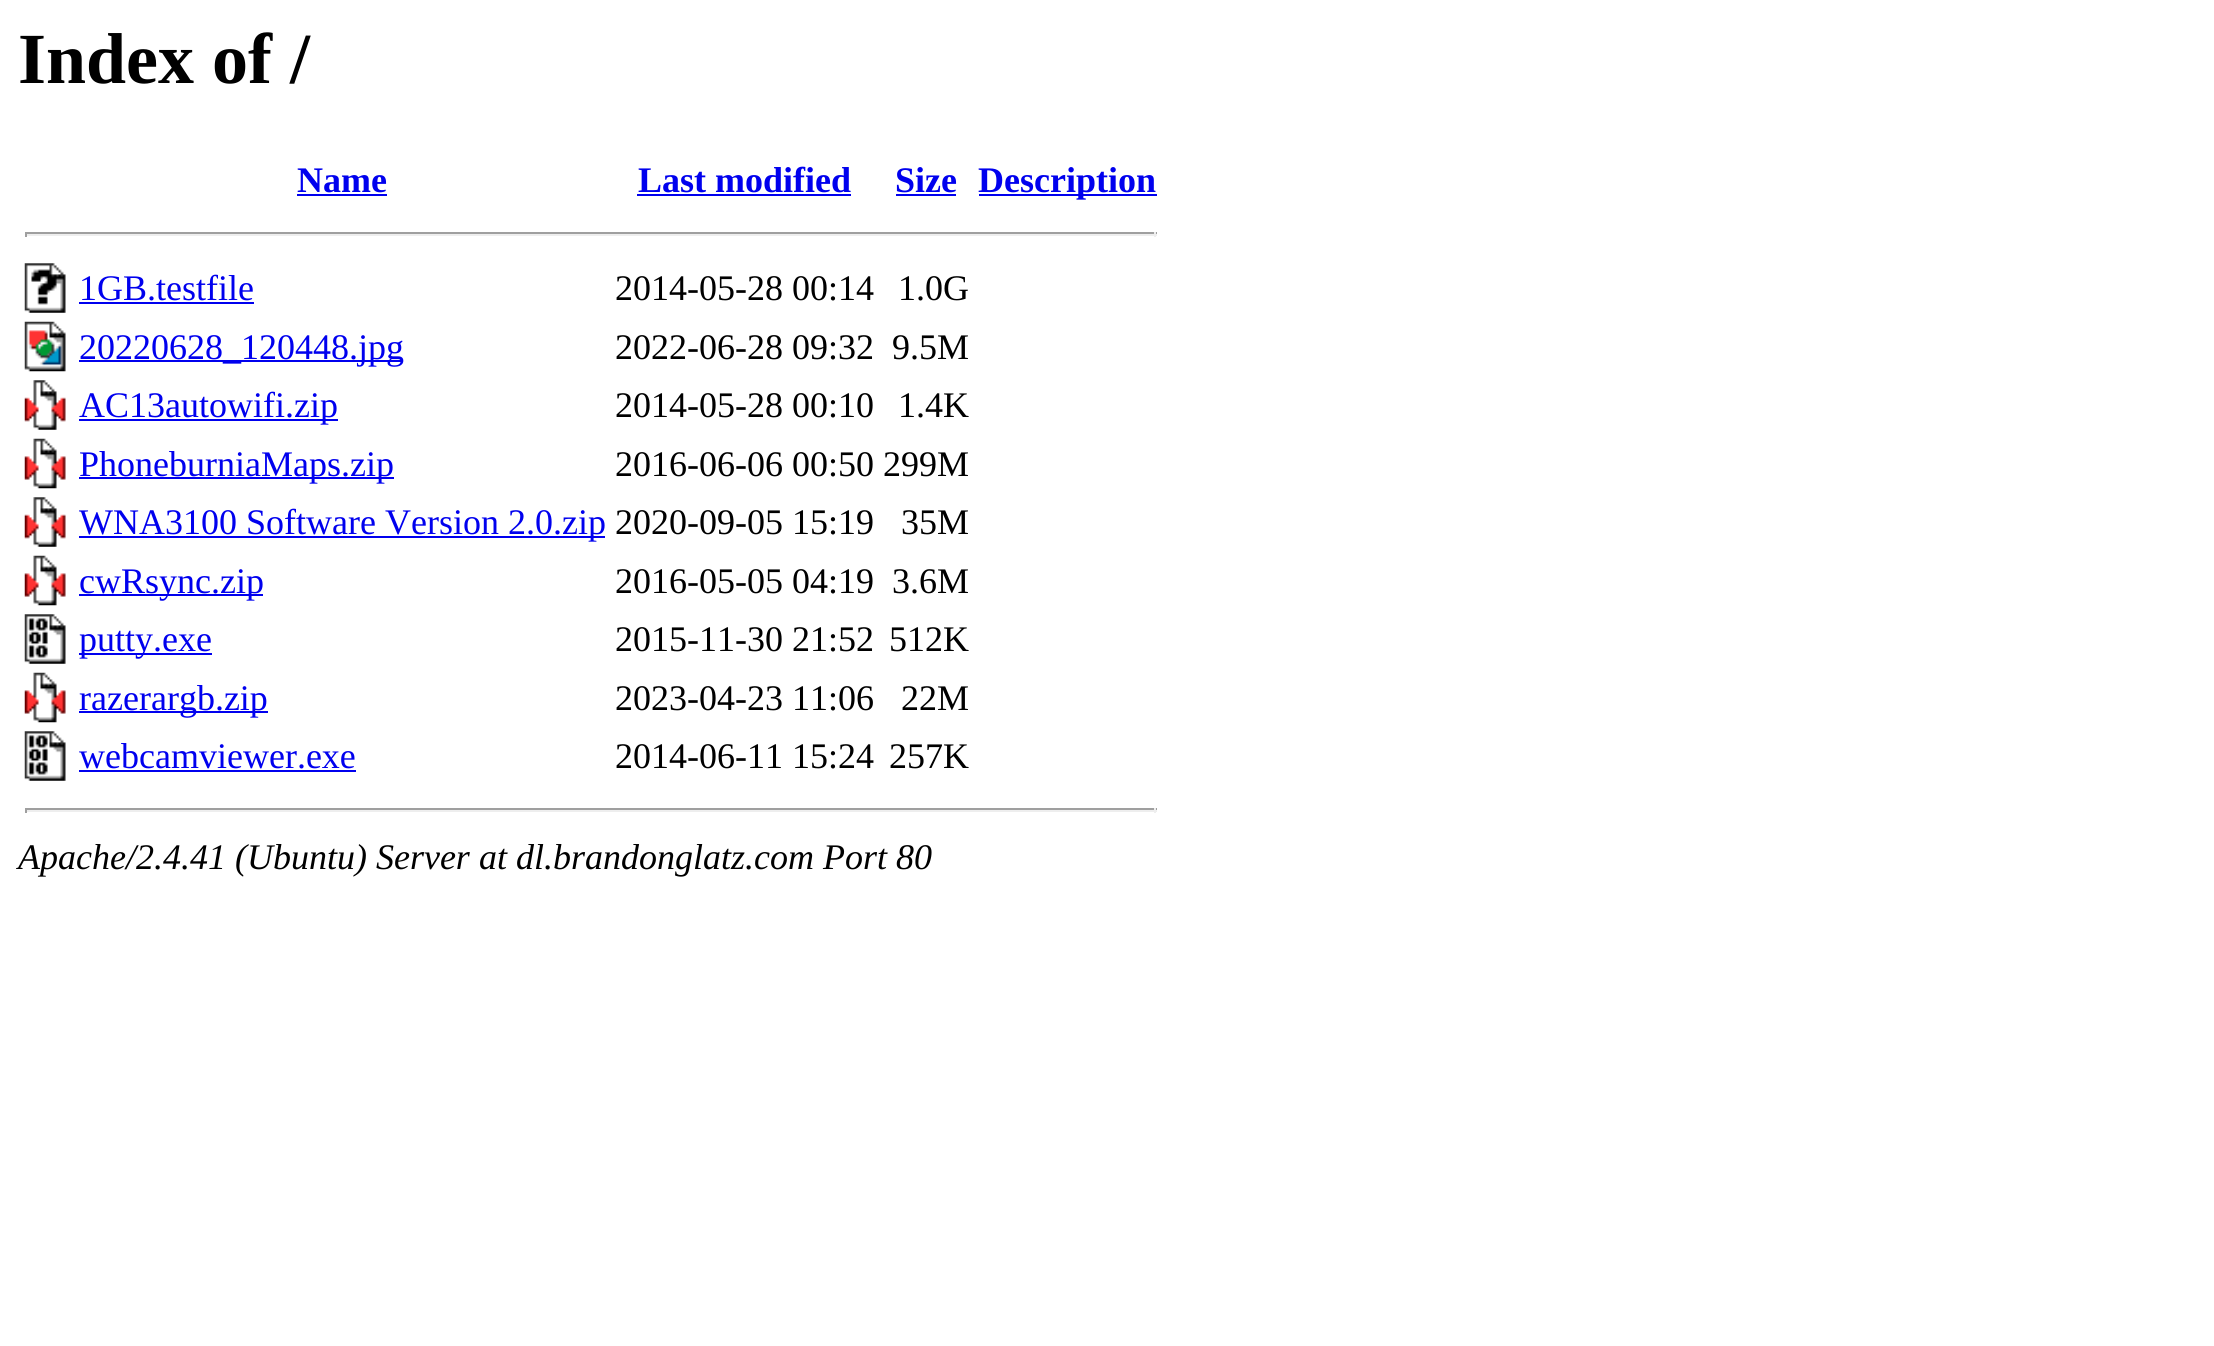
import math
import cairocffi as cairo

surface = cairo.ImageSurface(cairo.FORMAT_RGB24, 2214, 1346)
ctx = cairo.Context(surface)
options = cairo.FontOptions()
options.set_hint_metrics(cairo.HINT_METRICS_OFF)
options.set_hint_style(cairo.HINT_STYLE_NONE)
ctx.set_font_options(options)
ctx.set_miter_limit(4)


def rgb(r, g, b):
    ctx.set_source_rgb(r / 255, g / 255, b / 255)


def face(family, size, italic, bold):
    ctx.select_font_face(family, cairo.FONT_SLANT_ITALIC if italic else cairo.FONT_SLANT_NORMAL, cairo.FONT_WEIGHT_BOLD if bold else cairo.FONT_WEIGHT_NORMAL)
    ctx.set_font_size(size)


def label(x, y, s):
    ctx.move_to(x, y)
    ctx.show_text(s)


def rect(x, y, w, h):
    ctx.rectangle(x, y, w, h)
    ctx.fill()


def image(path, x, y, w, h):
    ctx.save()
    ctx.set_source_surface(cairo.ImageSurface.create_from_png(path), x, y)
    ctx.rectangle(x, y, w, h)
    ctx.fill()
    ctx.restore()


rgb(255, 255, 255)
ctx.paint()
face('Liberation Serif', 72, 0, 1)
rgb(0, 0, 0)
label(18, 83, 'Index of /')
face('Liberation Serif', 36, 0, 1)
rgb(0, 0, 238)
label(297, 192, 'Name')
rect(297, 194, 90, 2)
label(638, 192, 'Last modified')
rect(637, 194, 214, 2)
label(895, 192, 'Size')
rect(896, 194, 60, 2)
rect(979, 194, 178, 2)
label(978, 192, 'Description')
rgb(159, 159, 159)
rect(25, 232, 1132, 2)
rgb(238, 238, 238)
rect(1154, 232, 2, 5)
rect(25, 234, 1132, 2)
rgb(159, 159, 159)
rect(25, 232, 2, 5)
image('image0.png', 24, 263, 42, 50)
face('Liberation Serif', 36, 0, 0)
rgb(0, 0, 238)
label(79, 300, '1GB.testfile')
rect(79, 302, 175, 2)
rgb(0, 0, 0)
label(615, 300, '2014-05-28 00:14')
label(898, 300, '1.0G')
image('image1.png', 24, 321, 42, 51)
rgb(0, 0, 238)
rect(79, 360, 324, 2)
label(79, 359, '20220628_120448.jpg')
rgb(0, 0, 0)
label(615, 359, '2022-06-28 09:32')
label(892, 359, '9.5M')
image('image2.png', 24, 380, 42, 50)
rgb(0, 0, 238)
rect(79, 419, 259, 2)
label(79, 417, 'AC13autowifi.zip')
rgb(0, 0, 0)
label(615, 417, '2014-05-28 00:10')
label(898, 417, '1.4K')
image('image3.png', 24, 438, 42, 51)
rgb(0, 0, 238)
rect(79, 477, 315, 2)
label(79, 476, 'PhoneburniaMaps.zip')
rgb(0, 0, 0)
label(615, 476, '2016-06-06 00:50 299M')
image('image2.png', 24, 497, 42, 50)
rgb(0, 0, 238)
rect(79, 536, 526, 2)
label(79, 534, 'WNA3100 Software Version 2.0.zip')
rgb(0, 0, 0)
label(615, 534, '2020-09-05 15:19')
label(901, 534, '35M')
image('image4.png', 24, 555, 42, 51)
rgb(0, 0, 238)
rect(79, 594, 184, 2)
label(79, 593, 'cwRsync.zip')
rgb(0, 0, 0)
label(615, 593, '2016-05-05 04:19')
label(892, 593, '3.6M')
image('image5.png', 24, 614, 42, 50)
rgb(0, 0, 238)
rect(79, 653, 133, 2)
label(79, 651, 'putty.exe')
rgb(0, 0, 0)
label(615, 651, '2015-11-30 21:52')
label(889, 651, '512K')
image('image3.png', 24, 672, 42, 51)
rgb(0, 0, 238)
rect(79, 711, 189, 2)
label(79, 710, 'razerargb.zip')
rgb(0, 0, 0)
label(615, 710, '2023-04-23 11:06')
label(901, 710, '22M')
image('image5.png', 24, 731, 42, 50)
rgb(0, 0, 238)
label(79, 768, 'webcamviewer.exe')
rect(79, 770, 277, 2)
rgb(0, 0, 0)
label(615, 768, '2014-06-11 15:24')
label(889, 768, '257K')
rgb(159, 159, 159)
rect(25, 808, 1132, 2)
rgb(238, 238, 238)
rect(1154, 808, 2, 5)
rect(25, 810, 1132, 2)
rgb(159, 159, 159)
rect(25, 808, 2, 5)
face('Liberation Serif', 36, 1, 0)
rgb(0, 0, 0)
label(18, 869, 'Apache/2.4.41 (Ubuntu) Server at dl.brandonglatz.com Port 80')
surface.write_to_png('render.png')
